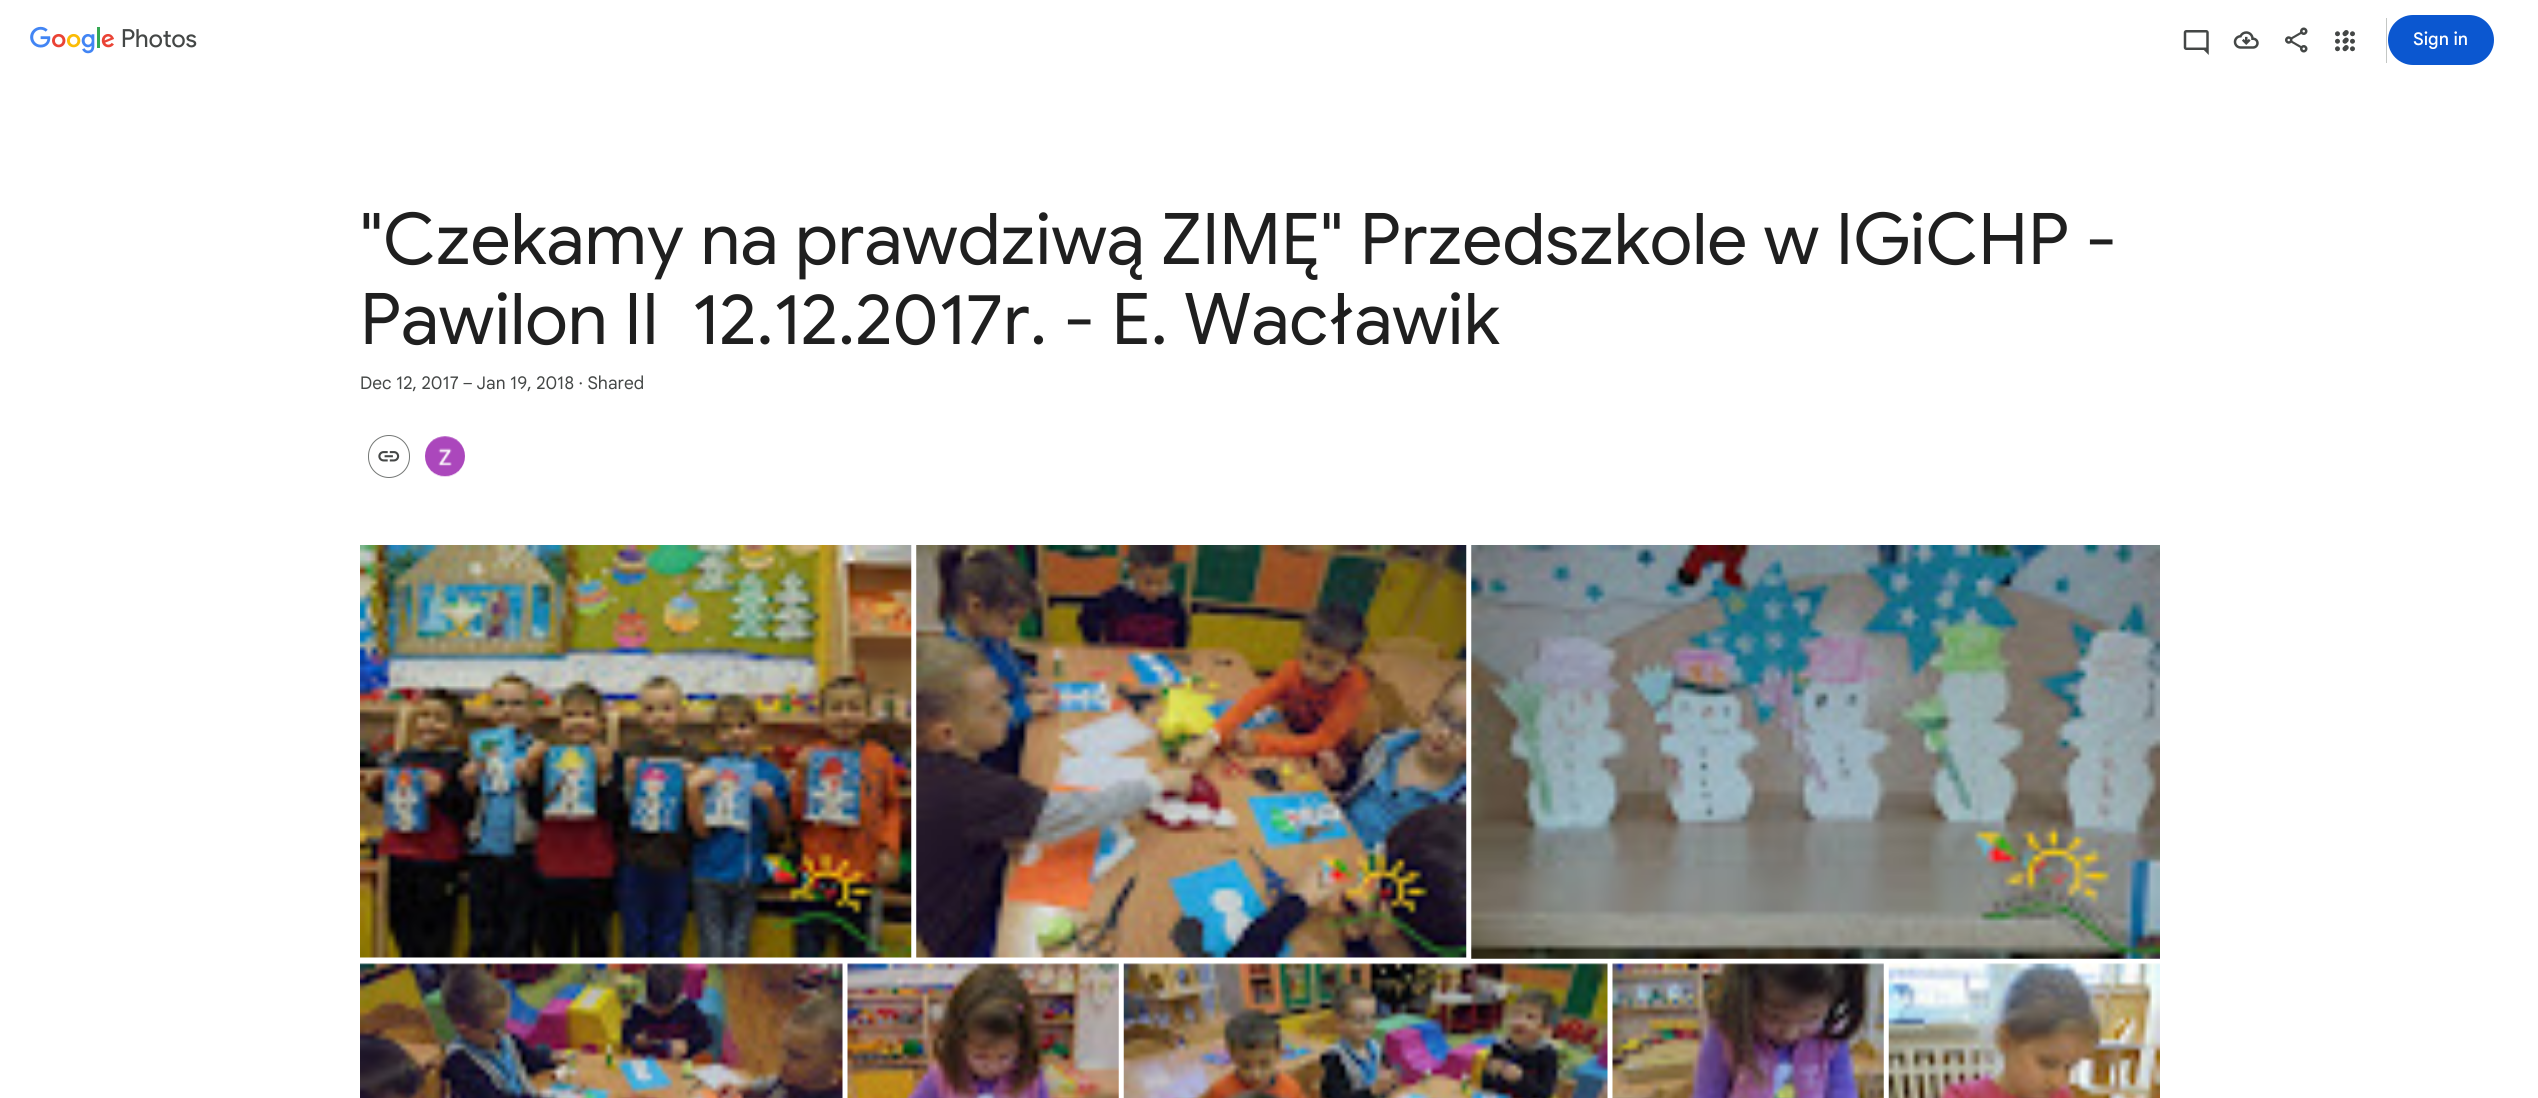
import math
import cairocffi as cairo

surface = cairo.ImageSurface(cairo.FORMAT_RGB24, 2538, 1098)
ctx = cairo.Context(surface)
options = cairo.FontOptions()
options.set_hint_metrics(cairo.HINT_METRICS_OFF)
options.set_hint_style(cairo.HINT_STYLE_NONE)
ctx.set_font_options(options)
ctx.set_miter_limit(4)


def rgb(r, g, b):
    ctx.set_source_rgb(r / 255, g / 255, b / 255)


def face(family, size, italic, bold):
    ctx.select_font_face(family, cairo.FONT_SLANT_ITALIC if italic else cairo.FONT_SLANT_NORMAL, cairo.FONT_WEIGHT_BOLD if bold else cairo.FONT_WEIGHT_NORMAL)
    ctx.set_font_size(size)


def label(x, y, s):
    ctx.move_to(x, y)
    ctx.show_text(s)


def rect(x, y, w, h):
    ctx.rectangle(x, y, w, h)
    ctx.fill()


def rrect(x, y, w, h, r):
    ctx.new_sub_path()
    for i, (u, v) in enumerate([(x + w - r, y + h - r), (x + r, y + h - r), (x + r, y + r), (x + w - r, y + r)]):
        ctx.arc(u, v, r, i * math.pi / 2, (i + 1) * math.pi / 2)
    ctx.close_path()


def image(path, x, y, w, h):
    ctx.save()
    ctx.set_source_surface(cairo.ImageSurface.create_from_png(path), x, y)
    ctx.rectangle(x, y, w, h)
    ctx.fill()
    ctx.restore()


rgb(255, 255, 255)
ctx.paint()
image('image0.png', 30, 26, 84, 28)
face('Product Sans', 25, 0, 0)
rgb(68, 71, 70)
label(121, 47, 'Photos')
image('image1.png', 2183, 30, 26, 25)
image('image2.png', 2233, 31, 26, 18)
image('image3.png', 2285, 27, 23, 26)
image('image4.png', 2343, 30, 6, 20)
rgb(196, 199, 197)
rect(2386, 18, 1, 45)
face('Google Sans', 71.25, 0, 0)
rgb(31, 31, 31)
label(360, 264, '"Czekamy na prawdziwą ZIMĘ" Przedszkole w IGiCHP -')
label(360, 344, 'Pawilon II')
label(692, 344, '12.12.2017r. - E. Wacławik')
face('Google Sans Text', 17.5, 0, 0)
rgb(68, 71, 70)
label(360, 389, 'Dec 12, 2017 – Jan 19, 2018 · Shared')
rrect(368.5, 435.5, 41, 42, 20.5)
rgb(116, 119, 117)
ctx.set_line_width(1)
ctx.stroke()
image('image5.png', 378, 451, 22, 11)
image('image6.png', 425, 436, 40, 41)
image('image7.png', 360, 545, 552, 413)
image('image8.png', 916, 545, 551, 413)
image('image9.png', 1471, 545, 689, 414)
image('image10.png', 360, 963, 483, 135)
image('image11.png', 847, 963, 272, 135)
image('image12.png', 1123, 963, 485, 135)
image('image13.png', 1612, 963, 272, 135)
image('image14.png', 1888, 963, 272, 135)
image('image15.png', 2335, 31, 20, 21)
rgb(11, 87, 208)
rrect(2388, 15, 106, 50, 25)
ctx.fill()
face('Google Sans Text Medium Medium', 17.5, 0, 0)
rgb(255, 255, 255)
label(2413, 45, 'Sign in')
surface.write_to_png('render.png')
